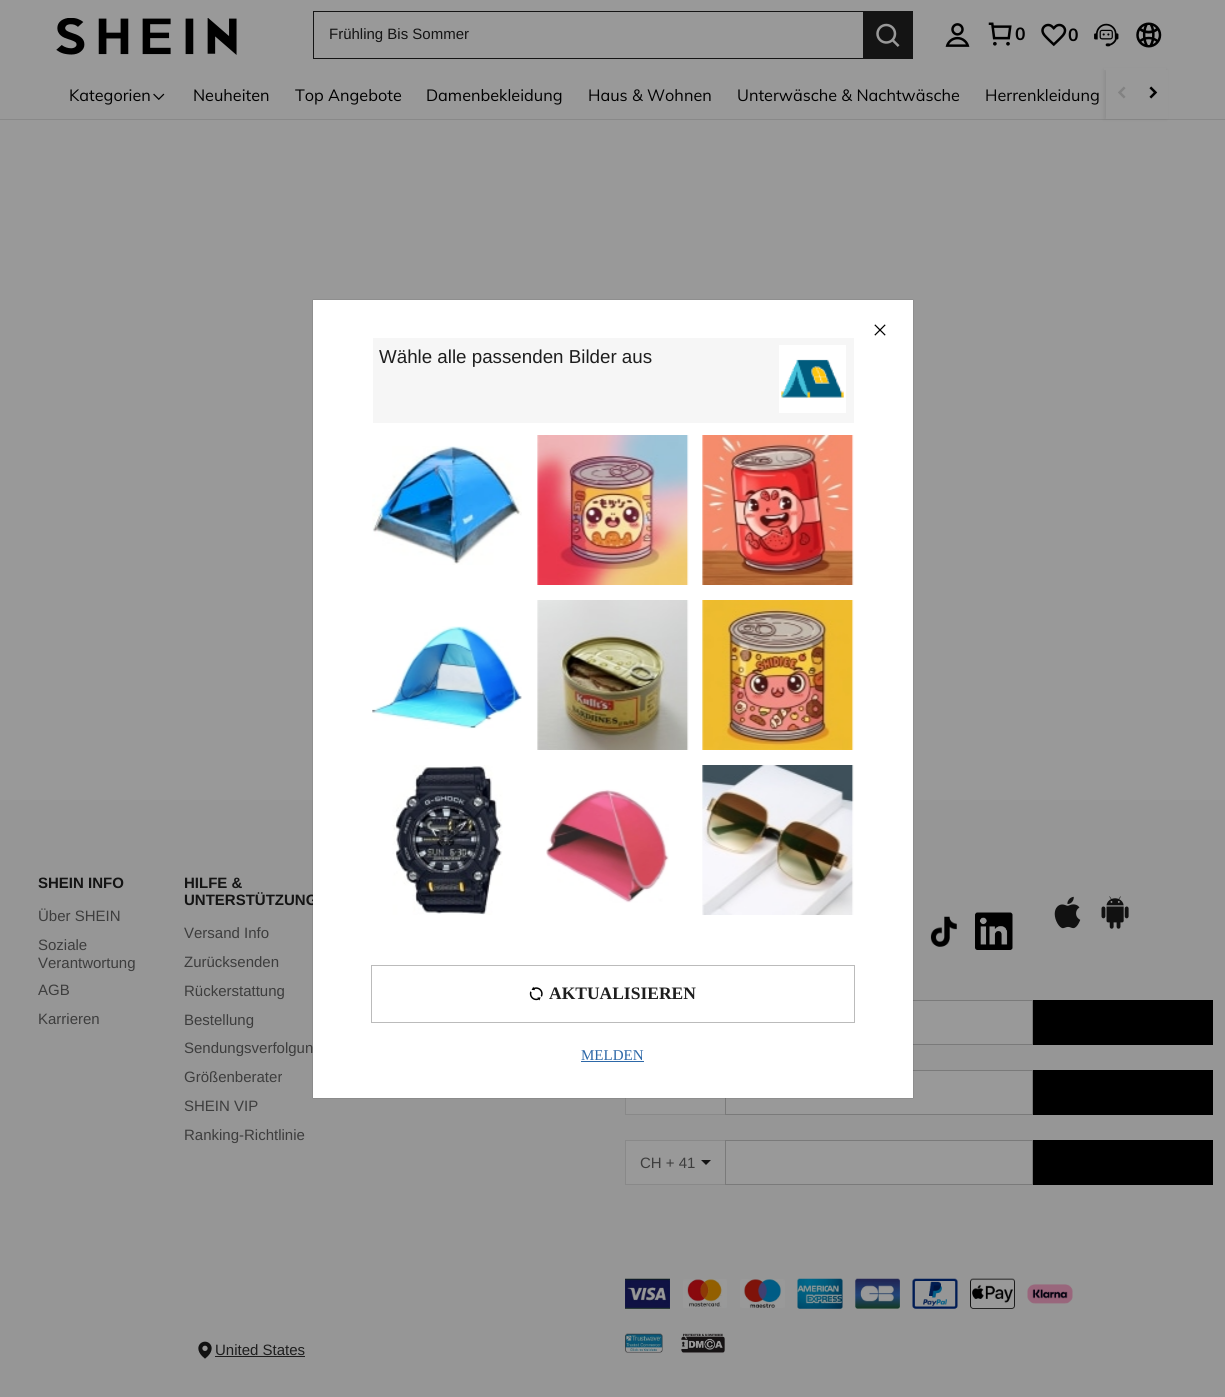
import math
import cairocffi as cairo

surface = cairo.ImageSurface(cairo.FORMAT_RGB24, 1225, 1397)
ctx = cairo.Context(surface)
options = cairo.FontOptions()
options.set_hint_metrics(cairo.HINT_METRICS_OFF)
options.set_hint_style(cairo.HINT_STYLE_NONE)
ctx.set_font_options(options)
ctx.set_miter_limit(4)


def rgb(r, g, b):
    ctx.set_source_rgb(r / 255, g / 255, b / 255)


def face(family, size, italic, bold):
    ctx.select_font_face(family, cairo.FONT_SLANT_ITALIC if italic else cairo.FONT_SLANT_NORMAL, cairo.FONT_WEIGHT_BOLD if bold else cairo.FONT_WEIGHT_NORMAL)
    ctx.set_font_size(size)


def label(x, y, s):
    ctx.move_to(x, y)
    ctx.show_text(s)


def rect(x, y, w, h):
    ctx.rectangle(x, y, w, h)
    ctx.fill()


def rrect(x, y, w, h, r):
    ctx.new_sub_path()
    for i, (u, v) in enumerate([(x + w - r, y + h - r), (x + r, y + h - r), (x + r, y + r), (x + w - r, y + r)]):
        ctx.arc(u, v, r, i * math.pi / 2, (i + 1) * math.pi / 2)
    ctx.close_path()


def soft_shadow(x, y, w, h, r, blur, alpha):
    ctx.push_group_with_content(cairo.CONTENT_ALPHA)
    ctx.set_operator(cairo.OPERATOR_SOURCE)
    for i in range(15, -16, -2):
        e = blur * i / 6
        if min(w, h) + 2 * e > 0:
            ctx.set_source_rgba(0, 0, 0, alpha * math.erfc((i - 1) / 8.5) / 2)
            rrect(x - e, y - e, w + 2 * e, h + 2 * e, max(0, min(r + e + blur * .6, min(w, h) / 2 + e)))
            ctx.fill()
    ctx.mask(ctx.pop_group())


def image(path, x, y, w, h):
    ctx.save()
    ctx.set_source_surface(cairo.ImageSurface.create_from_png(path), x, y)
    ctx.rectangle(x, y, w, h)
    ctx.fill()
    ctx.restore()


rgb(153, 153, 153)
ctx.paint()
rgb(137, 137, 137)
rect(0, 119, 1225, 1)
rgb(0, 0, 0)
soft_shadow(1104, 70, 62, 49, 0, 2, 0.08)
rgb(153, 153, 153)
rect(1104, 68, 62, 2)
image('image0.png', 56, 18, 181, 37)
rgb(20, 20, 20)
rect(313, 11, 550, 1)
rect(313, 58, 550, 1)
rect(313, 11, 1, 48)
face('Liberation Sans', 15, 0, 0)
label(329, 39, 'Frühling Bis Sommer')
rect(863, 11, 50, 48)
image('image1.png', 876, 23, 24, 24)
image('image2.png', 945, 23, 25, 24)
image('image3.png', 988, 22, 24, 24)
face('Muli', 17.5, 0, 1)
rgb(0, 0, 0)
label(1015, 40, '0')
image('image4.png', 1041, 23, 26, 24)
label(1068, 41, '0')
image('image5.png', 1094, 23, 25, 24)
image('image6.png', 1136, 22, 26, 26)
face('Muli', 16.25, 0, 0)
label(69, 101, 'Kategorien')
image('image7.png', 153, 93, 12, 7)
label(193, 101, 'Neuheiten')
label(295, 101, 'Top Angebote')
label(426, 101, 'Damenbekleidung')
label(588, 101, 'Haus & Wohnen')
label(737, 101, 'Unterwäsche & Nachtwäsche')
label(985, 101, 'Herrenkleidung')
rgb(153, 153, 153)
rect(1106, 70, 62, 49)
image('image8.png', 1118, 86, 8, 13)
image('image9.png', 1149, 86, 9, 13)
rgb(150, 150, 150)
rect(0, 800, 1225, 597)
face('Liberation Sans', 15, 0, 1)
rgb(20, 20, 20)
label(38, 888, 'SHEIN INFO')
face('Liberation Sans', 15, 0, 0)
rgb(61, 61, 61)
label(38, 921, 'Über SHEIN')
label(38, 950, 'Soziale')
label(38, 968, 'Verantwortung')
label(38, 995, 'AGB')
label(38, 1024, 'Karrieren')
face('Liberation Sans', 15, 0, 1)
rgb(20, 20, 20)
label(184, 888, 'HILFE &')
label(184, 905, 'UNTERSTÜTZUNG')
face('Liberation Sans', 15, 0, 0)
rgb(61, 61, 61)
label(184, 938, 'Versand Info')
label(184, 967, 'Zurücksenden')
label(184, 996, 'Rückerstattung')
label(184, 1025, 'Bestellung')
label(184, 1053, 'Sendungsverfolgun')
label(184, 1082, 'Größenberater')
label(184, 1111, 'SHEIN VIP')
label(184, 1140, 'Ranking-Richtlinie')
image('image10.png', 930, 916, 27, 31)
image('image11.png', 975, 912, 38, 38)
image('image12.png', 1054, 896, 27, 33)
image('image13.png', 1101, 896, 28, 33)
rgb(153, 153, 153)
rect(913, 1001, 119, 43)
ctx.rectangle(625.5, 1000.5, 407, 44)
rgb(122, 122, 122)
ctx.set_line_width(1)
ctx.stroke()
rgb(0, 0, 0)
rect(1033, 1000, 180, 45)
rgb(153, 153, 153)
rect(626, 1098, 99, 16)
rgb(137, 137, 137)
rect(625, 1114, 100, 1)
rect(625, 1098, 1, 17)
rgb(153, 153, 153)
ctx.rectangle(725.5, 1070.5, 307, 44)
ctx.fill_preserve()
rgb(122, 122, 122)
ctx.stroke()
rgb(0, 0, 0)
rect(1033, 1070, 180, 45)
rgb(153, 153, 153)
rect(626, 1141, 99, 43)
rgb(137, 137, 137)
rect(625, 1140, 100, 1)
rect(625, 1184, 100, 1)
rect(625, 1140, 1, 45)
rgb(61, 61, 61)
label(640, 1168, 'CH + 41')
rgb(20, 20, 20)
ctx.new_path()
ctx.move_to(701, 1160)
ctx.line_to(711, 1160)
ctx.line_to(706, 1165)
ctx.close_path()
ctx.fill()
rgb(153, 153, 153)
ctx.rectangle(725.5, 1140.5, 307, 44)
ctx.fill_preserve()
rgb(122, 122, 122)
ctx.stroke()
rgb(0, 0, 0)
rect(1033, 1140, 180, 45)
image('image14.png', 625, 1278, 45, 31)
image('image15.png', 683, 1279, 44, 29)
image('image16.png', 740, 1279, 45, 29)
image('image17.png', 797, 1278, 46, 31)
image('image18.png', 855, 1278, 45, 31)
image('image19.png', 912, 1278, 46, 31)
image('image20.png', 970, 1278, 45, 31)
image('image21.png', 1027, 1284, 46, 20)
image('image22.png', 198, 1341, 14, 18)
rgb(30, 30, 30)
label(215, 1355, 'United States')
rect(215, 1356, 90, 1)
image('image23.png', 625, 1333, 38, 20)
image('image24.png', 681, 1333, 44, 20)
rgb(0, 0, 0)
soft_shadow(313, 300, 600, 798, 0, 0.5, 0.3)
rgb(255, 255, 255)
rect(313, 300, 600, 798)
image('image25.png', 874, 324, 12, 12)
rgb(246, 246, 246)
rect(373, 338, 481, 85)
face('Liberation Sans', 18.75, 0, 0)
rgb(30, 30, 30)
label(379, 363, 'Wähle alle passenden Bilder aus')
rgb(255, 255, 255)
rect(779, 345, 67, 68)
image('image26.png', 781, 359, 63, 39)
image('image27.png', 372, 446, 150, 119)
image('image28.png', 537, 435, 152, 150)
image('image29.png', 702, 435, 152, 150)
image('image30.png', 372, 626, 150, 103)
image('image31.png', 537, 600, 152, 150)
image('image32.png', 702, 600, 152, 150)
image('image33.png', 392, 765, 111, 150)
image('image34.png', 546, 789, 123, 114)
image('image35.png', 702, 765, 152, 150)
ctx.rectangle(371.5, 965.5, 483, 57)
rgb(187, 187, 187)
ctx.stroke()
image('image36.png', 529, 986, 14, 15)
face('Liberation Serif', 17.5, 0, 1)
rgb(30, 30, 30)
label(549, 999, 'AKTUALISIEREN')
face('Liberation Serif', 15, 0, 0)
rgb(45, 104, 168)
label(581, 1060, 'MELDEN')
rect(581, 1061, 63, 1)
surface.write_to_png('render.png')
